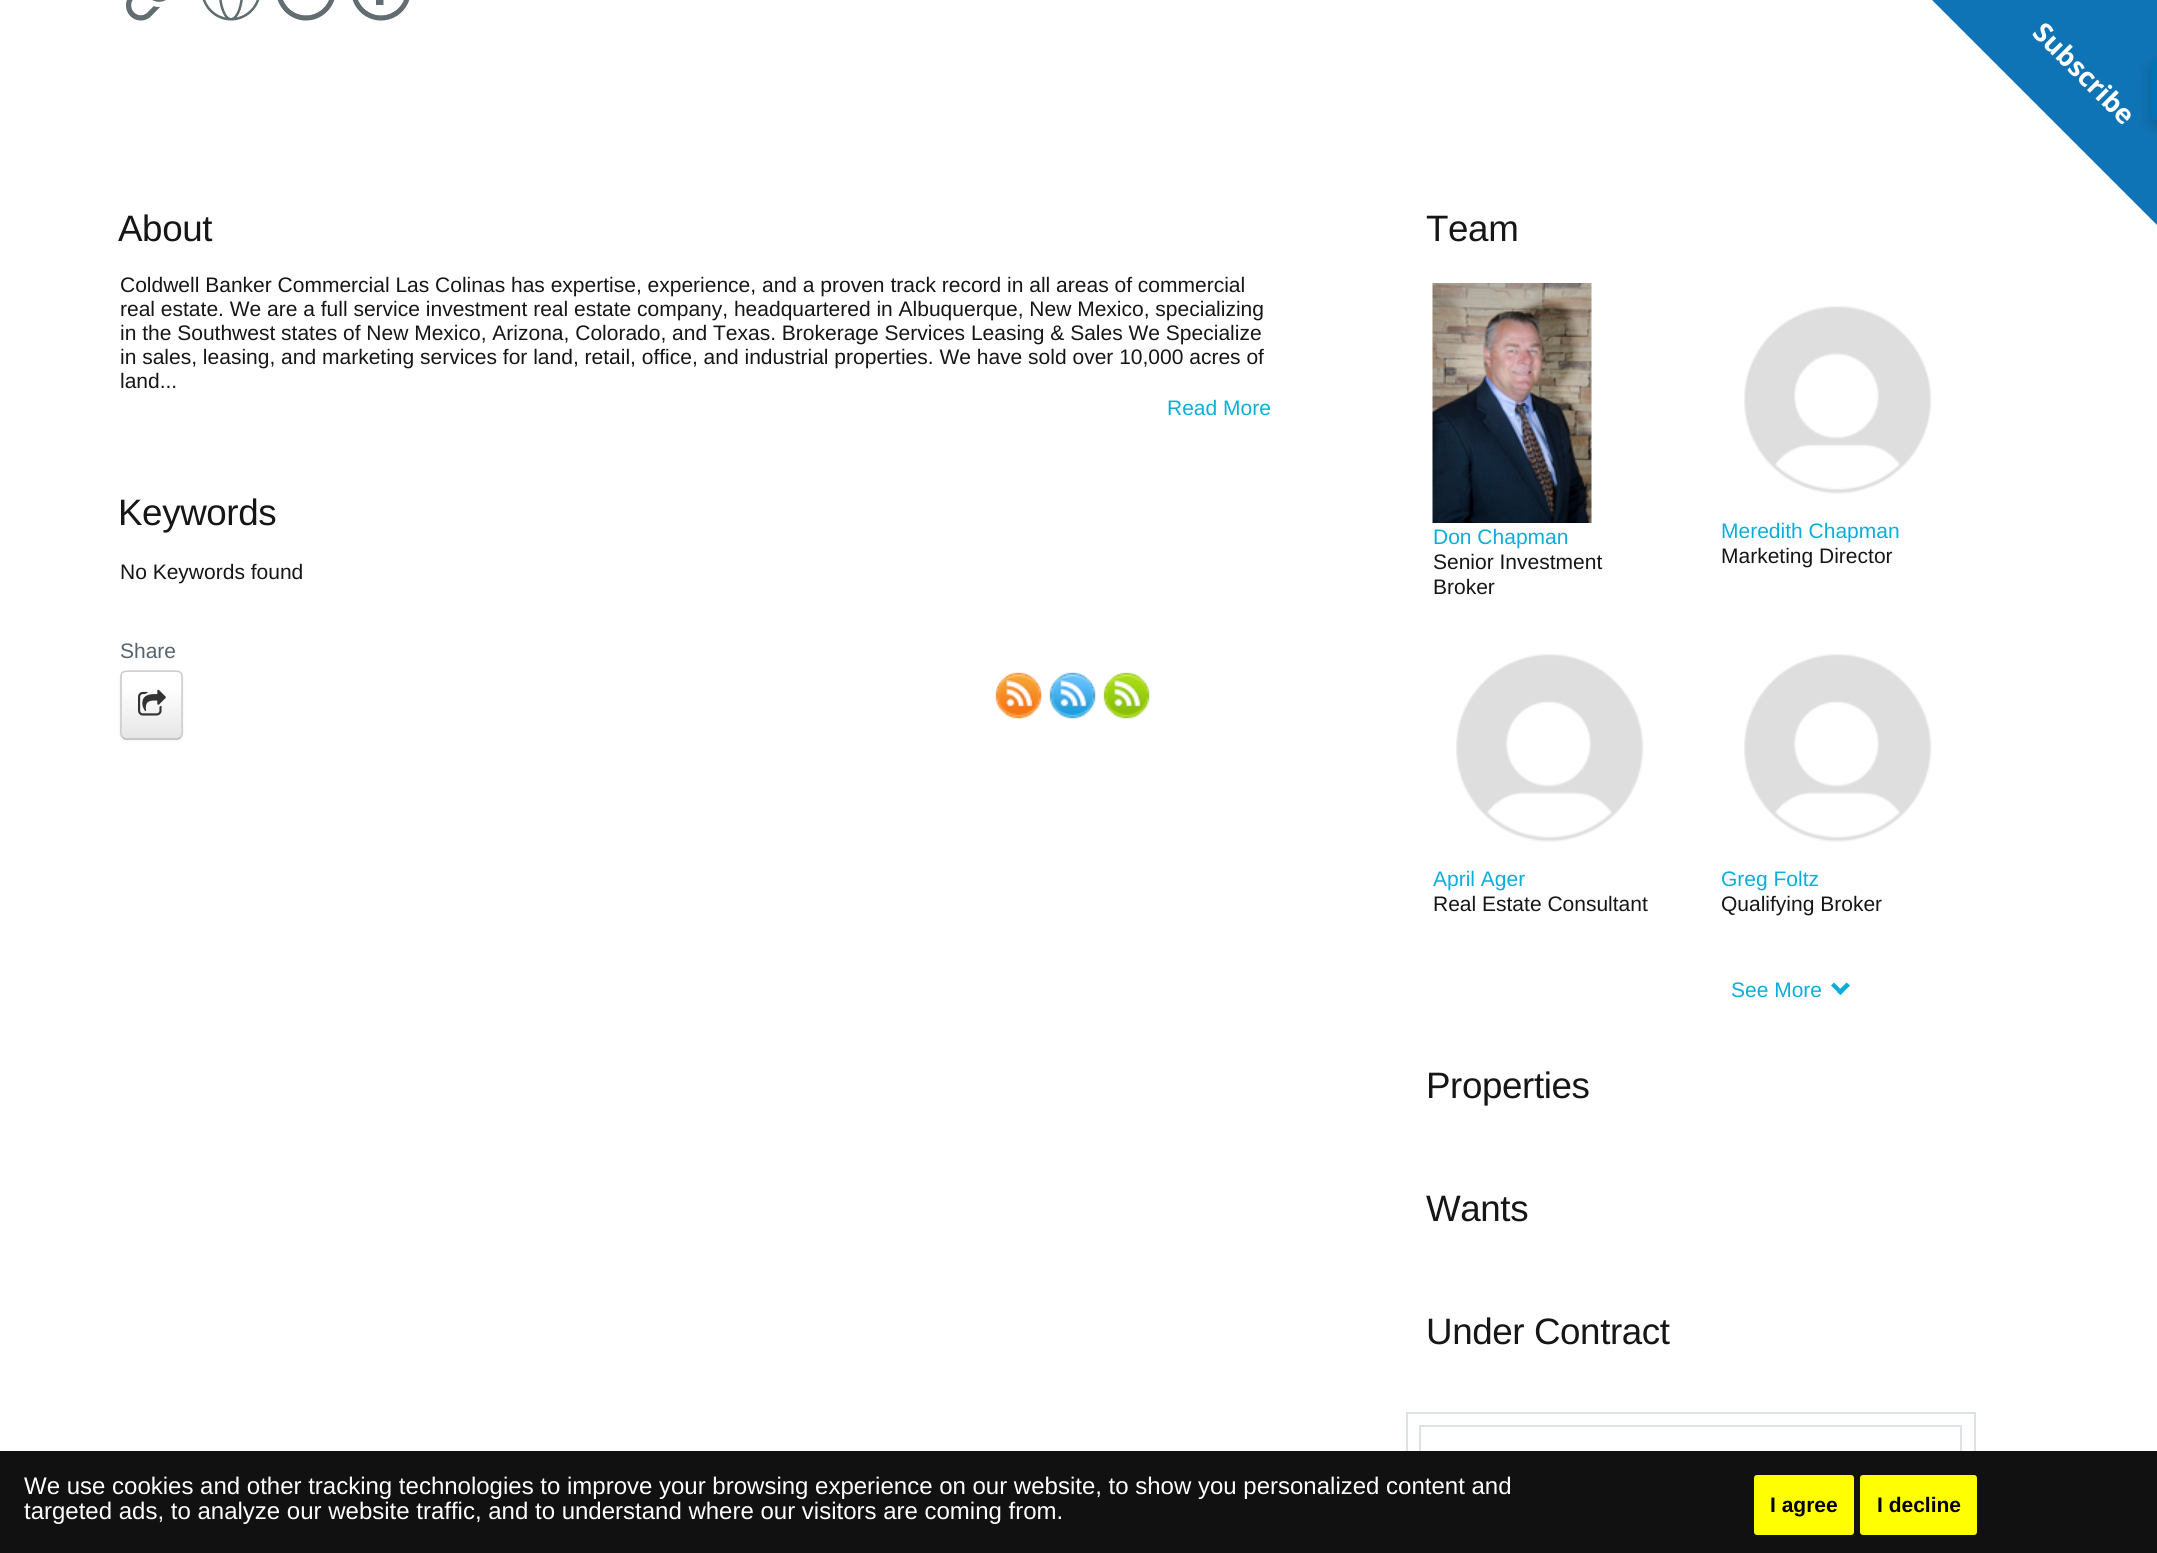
import math
import cairocffi as cairo

surface = cairo.ImageSurface(cairo.FORMAT_RGB24, 2157, 1553)
ctx = cairo.Context(surface)
options = cairo.FontOptions()
options.set_hint_metrics(cairo.HINT_METRICS_OFF)
options.set_hint_style(cairo.HINT_STYLE_NONE)
ctx.set_font_options(options)
ctx.set_miter_limit(4)


def rgb(r, g, b):
    ctx.set_source_rgb(r / 255, g / 255, b / 255)


def face(family, size, italic, bold):
    ctx.select_font_face(family, cairo.FONT_SLANT_ITALIC if italic else cairo.FONT_SLANT_NORMAL, cairo.FONT_WEIGHT_BOLD if bold else cairo.FONT_WEIGHT_NORMAL)
    ctx.set_font_size(size)


def label(x, y, s):
    ctx.move_to(x, y)
    ctx.show_text(s)


def tracked(x, y, s, letter, word):
    ctx.move_to(x, y)
    for ch in s:
        ctx.show_text(ch)
        ctx.rel_move_to(letter + word * (ch == ' '), 0)


def rect(x, y, w, h):
    ctx.rectangle(x, y, w, h)
    ctx.fill()


def rrect(x, y, w, h, r):
    ctx.new_sub_path()
    for i, (u, v) in enumerate([(x + w - r, y + h - r), (x + r, y + h - r), (x + r, y + r), (x + w - r, y + r)]):
        ctx.arc(u, v, r, i * math.pi / 2, (i + 1) * math.pi / 2)
    ctx.close_path()


def soft_shadow(x, y, w, h, r, blur, alpha):
    ctx.push_group_with_content(cairo.CONTENT_ALPHA)
    ctx.set_operator(cairo.OPERATOR_SOURCE)
    for i in range(15, -16, -2):
        e = blur * i / 6
        if min(w, h) + 2 * e > 0:
            ctx.set_source_rgba(0, 0, 0, alpha * math.erfc((i - 1) / 8.5) / 2)
            rrect(x - e, y - e, w + 2 * e, h + 2 * e, max(0, min(r + e + blur * .6, min(w, h) / 2 + e)))
            ctx.fill()
    ctx.mask(ctx.pop_group())


def image(path, x, y, w, h):
    ctx.save()
    ctx.set_source_surface(cairo.ImageSurface.create_from_png(path), x, y)
    ctx.rectangle(x, y, w, h)
    ctx.fill()
    ctx.restore()


rgb(255, 255, 255)
ctx.paint()
rgb(15, 116, 181)
ctx.new_path()
ctx.move_to(1932, 0)
ctx.line_to(2157, 0)
ctx.line_to(2157, 225)
ctx.close_path()
ctx.fill()
face('Open Sans', 27, 0, 1)
rgb(255, 255, 255)
ctx.save()
ctx.translate(2031, 34)
ctx.rotate(45 * math.pi / 180)
label(0, 0, 'Subscribe')
ctx.restore()
rgb(0, 0, 0)
soft_shadow(2151, 66, 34, 60, 5, 7.5, 0.2)
rgb(0, 115, 183)
ctx.new_path()
ctx.move_to(2156, 60)
ctx.line_to(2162, 60)
ctx.line_to(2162, 120)
ctx.line_to(2156, 120)
ctx.curve_to(2153, 120, 2151, 118, 2151, 115)
ctx.line_to(2151, 65)
ctx.curve_to(2151, 62, 2153, 60, 2156, 60)
ctx.close_path()
ctx.fill()
image('image0.png', 126, 0, 40, 21)
image('image1.png', 202, 0, 58, 21)
image('image2.png', 277, 0, 58, 21)
image('image3.png', 352, 0, 58, 21)
face('Liberation Sans', 36.75, 0, 0)
rgb(22, 22, 22)
tracked(118, 241, 'About', -0.4, 0)
face('Liberation Sans', 21, 0, 0)
label(120, 292, 'Coldwell Banker Commercial Las Colinas has expertise, experience, and a proven track record in all areas of commercial')
label(120, 316, 'real estate. We are a full service investment real estate company, headquartered in Albuquerque, New Mexico, specializing')
label(120, 340, 'in the Southwest states of New Mexico, Arizona, Colorado, and Texas. Brokerage Services Leasing & Sales We Specialize')
label(120, 364, 'in sales, leasing, and marketing services for land, retail, office, and industrial properties. We have sold over 10,000 acres of')
label(120, 388, 'land...')
rgb(11, 174, 219)
label(1167, 415, 'Read More')
face('Liberation Sans', 36.75, 0, 0)
rgb(22, 22, 22)
tracked(118, 525, 'Keywords', -0.4, 0)
face('Liberation Sans', 21, 0, 0)
label(120, 579, 'No Keywords found')
rgb(86, 100, 111)
label(120, 658, 'Share')
rgb(0, 0, 0)
soft_shadow(120, 672, 63, 69, 6, 1.5, 0.05)
rgb(230, 230, 230)
rrect(120, 671, 63, 69, 6)
ctx.fill()
ctx.save()
rrect(120, 671, 63, 69, 6)
ctx.clip()
gradient = cairo.LinearGradient(152, 672, 152, 738)
gradient.add_color_stop_rgba(0, 1, 1, 1, 1)
gradient.add_color_stop_rgba(0.25, 1, 1, 1, 1)
gradient.add_color_stop_rgba(1, 0.902, 0.902, 0.902, 1)
ctx.set_source(gradient)
rect(122, 672, 60, 66)
ctx.restore()
rgb(255, 255, 255)
ctx.new_path()
ctx.move_to(126, 674)
ctx.line_to(177, 674)
ctx.curve_to(179, 674, 182, 676, 182, 678)
ctx.curve_to(182, 670, 175, 672, 169, 672)
ctx.line_to(135, 672)
ctx.curve_to(129, 672, 122, 670, 122, 678)
ctx.curve_to(122, 676, 124, 674, 126, 674)
ctx.close_path()
ctx.fill()
ctx.new_path()
ctx.move_to(180.5, 737)
ctx.curve_to(179.5, 738, 178.5, 739, 177, 739)
ctx.line_to(126, 739)
ctx.curve_to(124.5, 739, 123.5, 738, 122.5, 737)
rgb(187, 187, 187)
ctx.set_line_width(1.5)
ctx.stroke()
ctx.new_path()
ctx.move_to(122.5, 737)
ctx.curve_to(119.5, 734, 121, 726.5, 121, 724)
ctx.line_to(121, 686)
ctx.curve_to(121, 671, 119.5, 671, 134.5, 671)
ctx.line_to(168.5, 671)
ctx.curve_to(183.5, 671, 182, 671, 182, 686)
ctx.line_to(182, 724)
ctx.curve_to(182, 726.5, 183.5, 734, 180.5, 737)
rgb(204, 204, 204)
ctx.stroke()
image('image4.png', 138, 689, 28, 27)
image('image5.png', 995, 672, 47, 47)
image('image6.png', 1049, 672, 47, 47)
image('image7.png', 1103, 672, 47, 47)
face('Liberation Sans', 36.75, 0, 0)
rgb(22, 22, 22)
tracked(1426, 241, 'Team', -0.4, 0)
image('image8.png', 1432, 283, 160, 240)
face('Liberation Sans', 21, 0, 0)
rgb(11, 174, 219)
label(1433, 544, 'Don Chapman')
rgb(22, 22, 22)
label(1433, 569, 'Senior Investment')
label(1433, 594, 'Broker')
image('image9.png', 1744, 306, 188, 188)
rgb(11, 174, 219)
label(1721, 538, 'Meredith Chapman')
rgb(22, 22, 22)
label(1721, 563, 'Marketing Director')
image('image10.png', 1456, 654, 188, 188)
rgb(11, 174, 219)
label(1433, 886, 'April Ager')
rgb(22, 22, 22)
label(1433, 911, 'Real Estate Consultant')
image('image10.png', 1744, 654, 188, 188)
rgb(11, 174, 219)
label(1721, 886, 'Greg Foltz')
rgb(22, 22, 22)
label(1721, 911, 'Qualifying Broker')
rgb(11, 174, 219)
label(1731, 997, 'See More')
ctx.new_path()
ctx.move_to(1846.5, 982.5)
ctx.line_to(1850, 985.5)
ctx.line_to(1840.5, 995)
ctx.line_to(1837, 992)
ctx.close_path()
ctx.fill()
ctx.new_path()
ctx.move_to(1834, 982.5)
ctx.line_to(1843.5, 992)
ctx.line_to(1840.5, 995)
ctx.line_to(1831, 985.5)
ctx.close_path()
ctx.fill()
face('Liberation Sans', 36.75, 0, 0)
rgb(22, 22, 22)
tracked(1426, 1098, 'Properties', -0.4, 0)
tracked(1426, 1221, 'Wants', -0.4, 0)
tracked(1426, 1344, 'Under Contract', -0.4, 0)
ctx.rectangle(1407, 1413, 568, 124)
rgb(222, 226, 230)
ctx.set_line_width(2)
ctx.stroke()
ctx.rectangle(1420, 1426, 541, 97)
ctx.stroke()
rgb(17, 17, 17)
rect(0, 1451, 2157, 102)
face('Liberation Sans', 24, 0, 0)
rgb(255, 255, 255)
label(24, 1494, 'We use cookies and other tracking technologies to improve your browsing experience on our website, to show you personalized content and')
label(24, 1519, 'targeted ads, to analyze our website traffic, and to understand where our visitors are coming from.')
rgb(255, 255, 0)
rrect(1754, 1475, 100, 60, 3)
ctx.fill()
face('Liberation Sans', 21, 0, 1)
rgb(0, 0, 0)
label(1770, 1512, 'I agree')
rgb(255, 255, 0)
rrect(1860, 1475, 117, 60, 3)
ctx.fill()
rgb(0, 0, 0)
label(1877, 1512, 'I decline')
surface.write_to_png('render.png')
